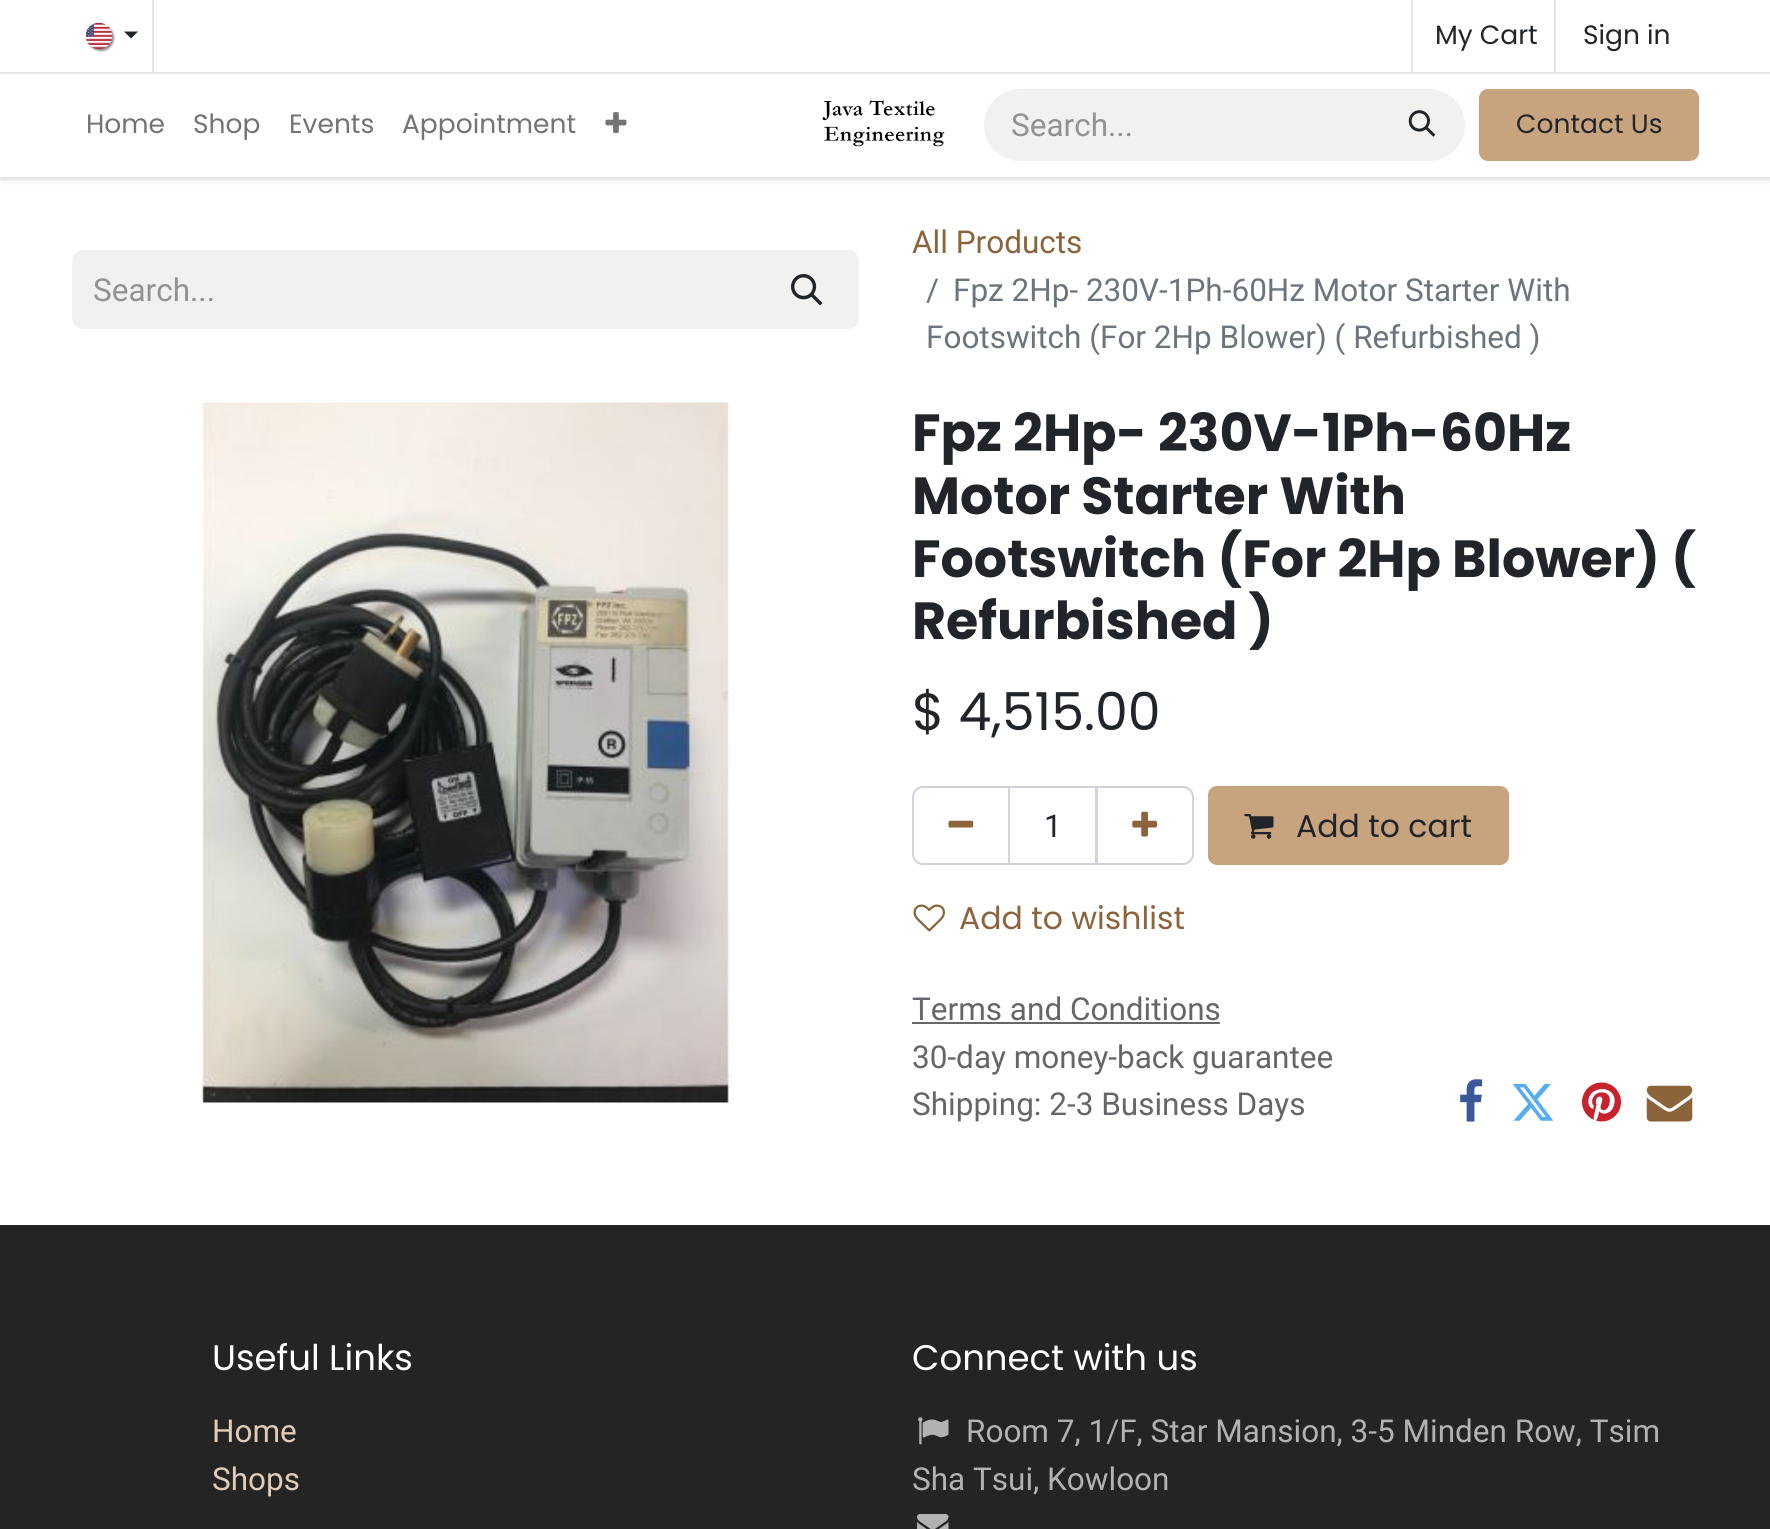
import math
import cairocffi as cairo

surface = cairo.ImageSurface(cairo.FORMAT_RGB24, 1770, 1529)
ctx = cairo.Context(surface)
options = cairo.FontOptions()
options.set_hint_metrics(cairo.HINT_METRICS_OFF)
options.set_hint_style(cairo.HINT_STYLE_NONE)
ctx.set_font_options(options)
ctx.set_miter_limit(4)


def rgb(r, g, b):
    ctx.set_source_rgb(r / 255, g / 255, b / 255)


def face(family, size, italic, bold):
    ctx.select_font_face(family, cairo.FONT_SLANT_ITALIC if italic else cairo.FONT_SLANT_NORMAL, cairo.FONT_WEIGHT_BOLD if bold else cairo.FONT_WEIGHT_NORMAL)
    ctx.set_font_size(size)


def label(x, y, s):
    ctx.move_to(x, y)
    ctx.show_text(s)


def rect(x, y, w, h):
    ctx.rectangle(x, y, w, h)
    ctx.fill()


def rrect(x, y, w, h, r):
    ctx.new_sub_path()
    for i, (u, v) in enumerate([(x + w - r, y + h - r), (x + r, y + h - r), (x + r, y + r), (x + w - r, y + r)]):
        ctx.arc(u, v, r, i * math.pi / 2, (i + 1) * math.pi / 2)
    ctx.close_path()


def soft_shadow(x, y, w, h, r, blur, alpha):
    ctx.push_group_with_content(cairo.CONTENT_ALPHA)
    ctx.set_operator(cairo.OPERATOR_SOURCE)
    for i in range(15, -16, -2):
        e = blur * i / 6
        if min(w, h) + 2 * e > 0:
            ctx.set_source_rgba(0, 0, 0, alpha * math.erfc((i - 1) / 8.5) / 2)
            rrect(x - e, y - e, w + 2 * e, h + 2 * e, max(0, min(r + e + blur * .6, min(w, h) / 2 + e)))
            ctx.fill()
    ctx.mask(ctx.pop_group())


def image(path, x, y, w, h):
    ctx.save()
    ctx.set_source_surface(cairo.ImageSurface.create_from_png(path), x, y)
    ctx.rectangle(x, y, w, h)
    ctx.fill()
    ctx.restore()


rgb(255, 255, 255)
ctx.paint()
rgb(0, 0, 0)
soft_shadow(0, 0, 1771, 177, 0, 4.5, 0.25)
rgb(255, 255, 255)
rect(0, 0, 1770, 177)
rgb(230, 230, 230)
rect(0, 72, 1770, 2)
rect(152, 0, 2, 72)
rgb(0, 0, 0)
soft_shadow(88, 25, 26, 26, 13, 1, 0.43)
image('image0.png', 85, 22, 27, 27)
rgb(33, 37, 41)
ctx.new_path()
ctx.move_to(124, 31.5)
ctx.line_to(138, 31.5)
ctx.line_to(131, 38.5)
ctx.close_path()
ctx.fill()
rgb(230, 230, 230)
rect(1411, 0, 2, 72)
face('Poppins', 26.5, 0, 0)
rgb(33, 37, 41)
label(1435, 44, 'My Cart')
rgb(230, 230, 230)
rect(1554, 0, 2, 72)
rgb(33, 37, 41)
label(1583, 44, 'Sign in')
rgb(115, 115, 115)
label(86, 133, 'Home')
label(193, 133, 'Shop')
label(289, 133, 'Events')
label(402, 133, 'Appointment')
image('image1.png', 605, 112, 22, 21)
image('image2.png', 822, 100, 123, 47)
rgb(241, 241, 239)
ctx.new_path()
ctx.move_to(1020, 89)
ctx.line_to(1374, 89)
ctx.line_to(1374, 161)
ctx.line_to(1020, 161)
ctx.curve_to(1000, 161, 984, 145, 984, 125)
ctx.curve_to(984, 105, 1000, 89, 1020, 89)
ctx.close_path()
ctx.fill()
face('Roboto', 31.5, 0, 0)
rgb(144, 146, 148)
label(1011, 136, 'Search...')
rgb(241, 241, 239)
ctx.new_path()
ctx.move_to(1372, 89)
ctx.line_to(1429, 89)
ctx.curve_to(1449, 89, 1465, 105, 1465, 125)
ctx.curve_to(1465, 145, 1449, 161, 1429, 161)
ctx.line_to(1372, 161)
ctx.close_path()
ctx.fill()
image('image3.png', 1408, 110, 28, 27)
rgb(200, 164, 126)
rrect(1480, 90, 218, 70, 8)
ctx.fill_preserve()
ctx.stroke()
face('Poppins', 26.5, 0, 0)
rgb(33, 37, 41)
label(1516, 133, 'Contact Us')
rgb(241, 241, 239)
ctx.new_path()
ctx.move_to(83, 250)
ctx.line_to(756, 250)
ctx.line_to(756, 329)
ctx.line_to(83, 329)
ctx.curve_to(77, 329, 72, 324, 72, 318)
ctx.line_to(72, 261)
ctx.curve_to(72, 255, 77, 250, 83, 250)
ctx.close_path()
ctx.fill()
face('Roboto', 31.5, 0, 0)
rgb(144, 146, 148)
label(93, 301, 'Search...')
rgb(241, 241, 239)
ctx.new_path()
ctx.move_to(755, 251)
ctx.line_to(848, 251)
ctx.curve_to(853.5, 251, 858, 255.5, 858, 261)
ctx.line_to(858, 318)
ctx.curve_to(858, 323.5, 853.5, 328, 848, 328)
ctx.line_to(755, 328)
ctx.close_path()
ctx.fill_preserve()
ctx.stroke()
image('image4.png', 791, 274, 32, 32)
rgb(139, 100, 59)
label(912, 253, 'All Products')
rgb(108, 117, 125)
label(926, 301, '/')
label(953, 301, 'Fpz 2Hp- 230V-1Ph-60Hz Motor Starter With')
label(926, 348, 'Footswitch (For 2Hp Blower) ( Refurbished )')
image('image5.png', 199, 402, 534, 701)
face('Poppins', 52.25, 0, 1)
rgb(33, 37, 41)
label(912, 451, 'Fpz 2Hp- 230V-1Ph-60Hz')
label(912, 514, 'Motor Starter With')
label(912, 577, 'Footswitch (For 2Hp Blower) (')
label(912, 639, 'Refurbished )')
face('Poppins', 52.25, 0, 0)
label(912, 730, '$ 4,515.00')
ctx.rectangle(1009, 787, 87, 77)
rgb(206, 212, 218)
ctx.stroke()
ctx.new_path()
ctx.move_to(923, 787)
ctx.line_to(1009, 787)
ctx.line_to(1009, 864)
ctx.line_to(923, 864)
ctx.curve_to(917.5, 864, 913, 859.5, 913, 854)
ctx.line_to(913, 797)
ctx.curve_to(913, 791.5, 917.5, 787, 923, 787)
ctx.close_path()
ctx.stroke()
image('image6.png', 948, 820, 26, 8)
face('Roboto', 31.5, 0, 0)
rgb(33, 37, 41)
label(1044, 837, '1')
ctx.new_path()
ctx.move_to(1097, 787)
ctx.line_to(1183, 787)
ctx.curve_to(1188.5, 787, 1193, 791.5, 1193, 797)
ctx.line_to(1193, 854)
ctx.curve_to(1193, 859.5, 1188.5, 864, 1183, 864)
ctx.line_to(1097, 864)
ctx.close_path()
rgb(206, 212, 218)
ctx.stroke()
image('image7.png', 1132, 811, 25, 26)
rgb(200, 164, 126)
rrect(1209, 787, 299, 77, 8)
ctx.fill_preserve()
ctx.stroke()
image('image8.png', 1244, 814, 30, 25)
face('Poppins', 31.5, 0, 0)
rgb(33, 37, 41)
label(1296, 837, 'Add to cart')
image('image9.png', 913, 904, 32, 28)
rgb(139, 100, 59)
label(959, 929, 'Add to wishlist')
face('Roboto', 31.5, 0, 0)
rgb(100, 102, 105)
label(912, 1020, 'Terms and Conditions')
rect(912, 1022, 308, 2)
label(912, 1068, '30-day money-back guarantee')
label(912, 1115, 'Shipping: 2-3 Business Days')
image('image10.png', 1460, 1079, 23, 43)
image('image11.png', 1512, 1083, 42, 38)
image('image12.png', 1582, 1082, 39, 40)
image('image13.png', 1646, 1085, 47, 37)
rgb(37, 36, 36)
rect(0, 1225, 1770, 304)
face('Poppins', 35.5, 0, 0)
rgb(255, 255, 255)
label(212, 1370, 'Useful Links')
face('Roboto', 31.5, 0, 0)
rgb(224, 204, 183)
label(212, 1442, 'Home')
label(212, 1490, 'Shops')
face('Poppins', 35.5, 0, 0)
rgb(255, 255, 255)
label(912, 1370, 'Connect with us')
image('image14.png', 918, 1417, 31, 28)
face('Roboto', 31.5, 0, 0)
rgb(178, 178, 178)
label(966, 1442, 'Room 7, 1/F, Star Mansion, 3-5 Minden Row, Tsim')
label(912, 1490, 'Sha Tsui, Kowloon')
image('image15.png', 917, 1514, 32, 15)
surface.write_to_png('render.png')
